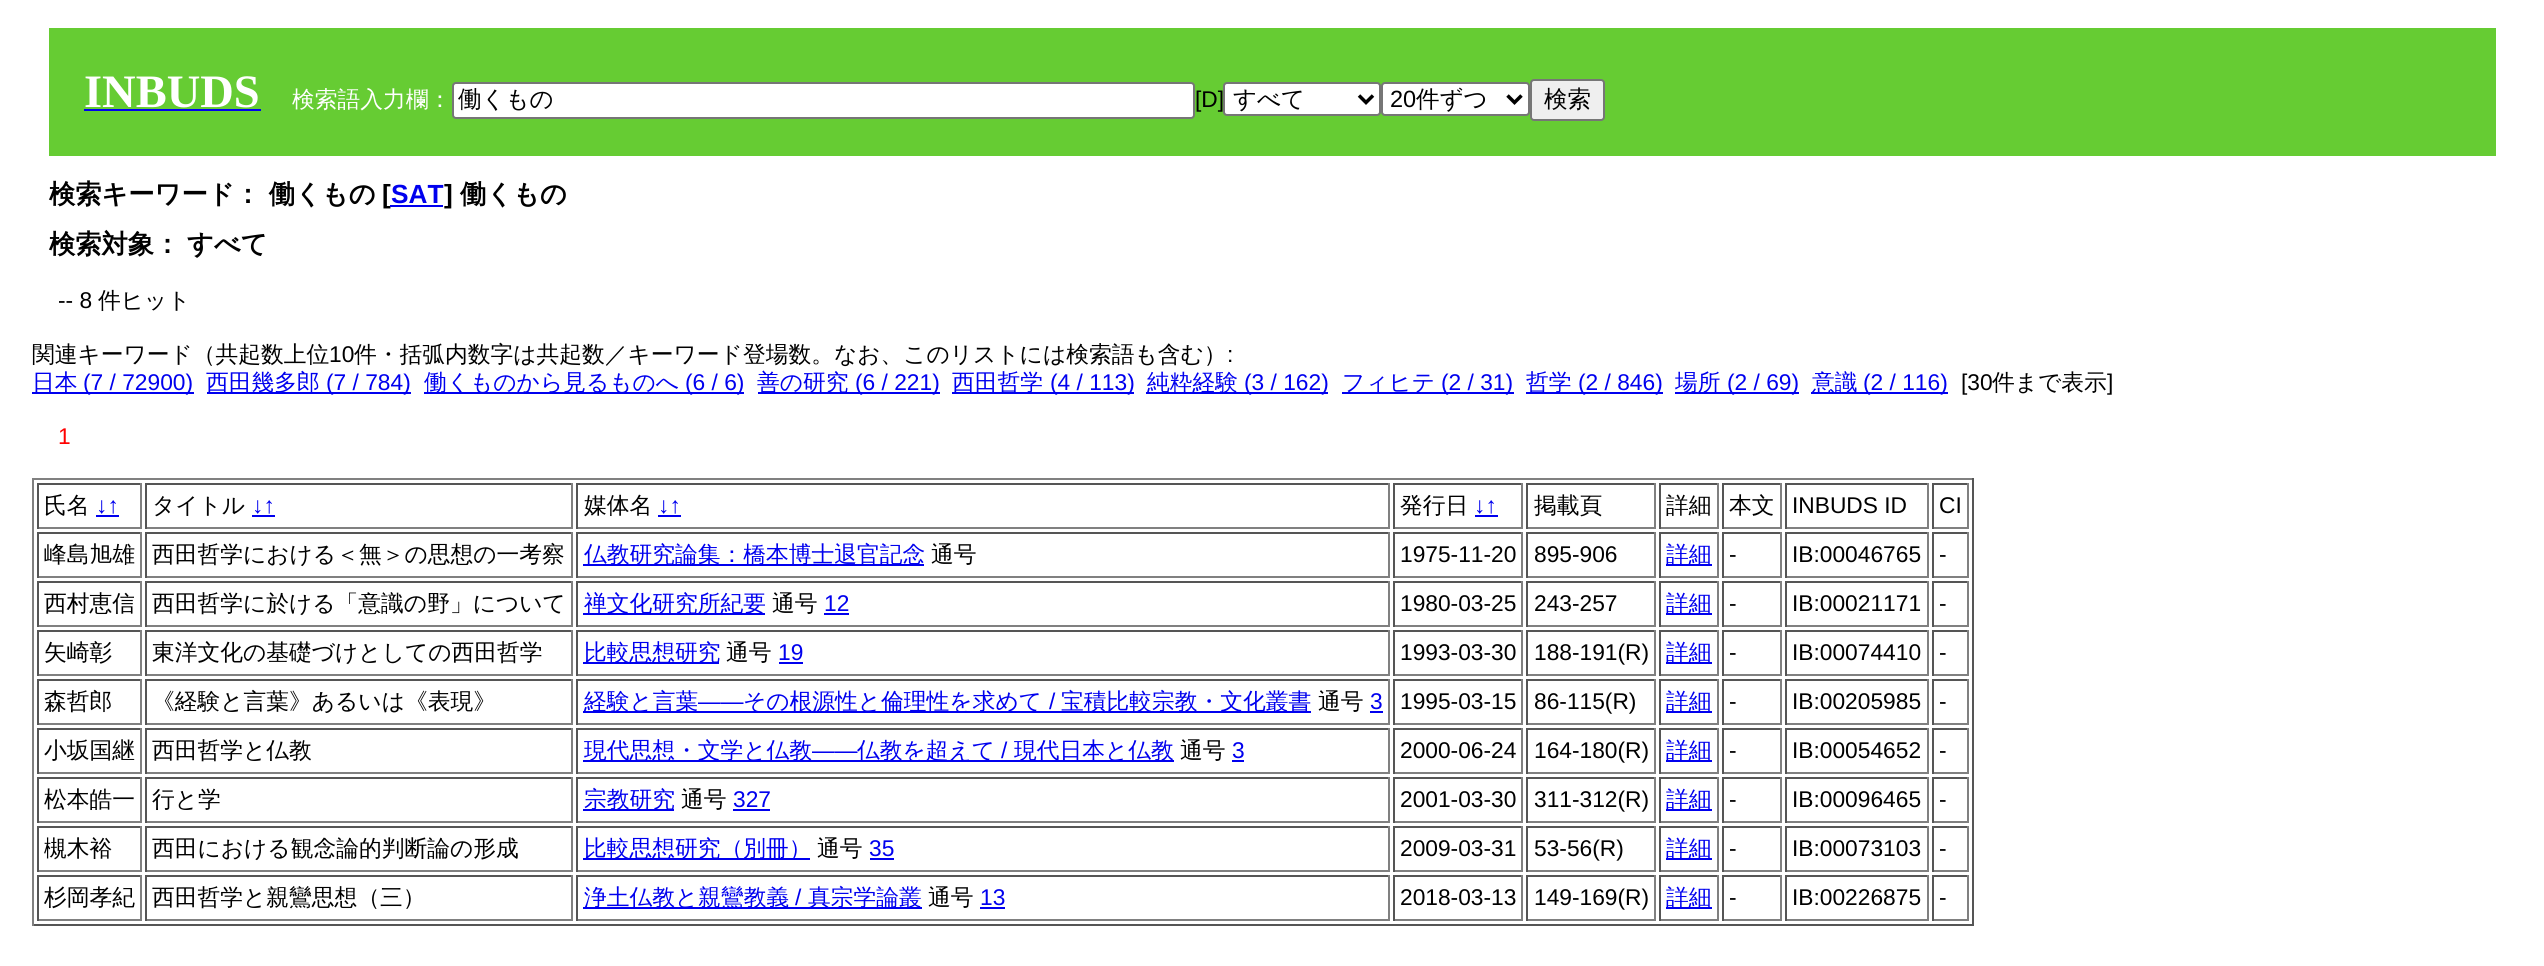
import math
import cairocffi as cairo

surface = cairo.ImageSurface(cairo.FORMAT_RGB24, 2544, 966)
ctx = cairo.Context(surface)
options = cairo.FontOptions()
options.set_hint_metrics(cairo.HINT_METRICS_OFF)
options.set_hint_style(cairo.HINT_STYLE_NONE)
ctx.set_font_options(options)
ctx.set_miter_limit(4)


def rgb(r, g, b):
    ctx.set_source_rgb(r / 255, g / 255, b / 255)


def face(family, size, italic, bold):
    ctx.select_font_face(family, cairo.FONT_SLANT_ITALIC if italic else cairo.FONT_SLANT_NORMAL, cairo.FONT_WEIGHT_BOLD if bold else cairo.FONT_WEIGHT_NORMAL)
    ctx.set_font_size(size)


def label(x, y, s):
    ctx.move_to(x, y)
    ctx.show_text(s)


def tracked(x, y, s, letter, word):
    ctx.move_to(x, y)
    for ch in s:
        ctx.show_text(ch)
        ctx.rel_move_to(letter + word * (ch == ' '), 0)


def rect(x, y, w, h):
    ctx.rectangle(x, y, w, h)
    ctx.fill()


def rrect(x, y, w, h, r):
    ctx.new_sub_path()
    for i, (u, v) in enumerate([(x + w - r, y + h - r), (x + r, y + h - r), (x + r, y + r), (x + w - r, y + r)]):
        ctx.arc(u, v, r, i * math.pi / 2, (i + 1) * math.pi / 2)
    ctx.close_path()


rgb(255, 255, 255)
ctx.paint()
rgb(102, 204, 51)
rect(49, 28, 2447, 128)
face('Liberation Serif', 46.5, 0, 1)
rgb(255, 255, 255)
label(84, 107, 'INBUDS')
rgb(0, 0, 238)
rect(84, 109, 177, 2)
face('WenQuanYi Zen Hei Medium', 22.75, 0, 0)
rgb(255, 255, 255)
label(292, 107, '検索語入力欄：')
rrect(453, 83, 741, 35, 3)
ctx.fill_preserve()
rgb(118, 118, 118)
ctx.stroke()
face('WenQuanYi Zen Hei Medium', 23.5, 0, 0)
rgb(0, 0, 0)
label(458, 107, '働くもの')
face('Liberation Sans', 22.75, 0, 0)
label(1195, 107, '[D]')
rgb(255, 255, 255)
rrect(1224, 83, 156, 32, 3)
ctx.fill_preserve()
rgb(118, 118, 118)
ctx.stroke()
ctx.new_path()
ctx.move_to(1359, 95.5)
ctx.line_to(1366, 102.5)
ctx.line_to(1373, 95.5)
rgb(0, 0, 0)
ctx.set_line_width(3.5)
ctx.stroke()
face('WenQuanYi Zen Hei Medium', 23.5, 0, 0)
label(1233, 107, 'すべて')
rgb(255, 255, 255)
rrect(1382, 83, 147, 32, 3)
ctx.fill_preserve()
rgb(118, 118, 118)
ctx.set_line_width(2)
ctx.stroke()
ctx.new_path()
ctx.move_to(1507.5, 95.5)
ctx.line_to(1514.5, 102.5)
ctx.line_to(1521.5, 95.5)
rgb(0, 0, 0)
ctx.set_line_width(3.5)
ctx.stroke()
face('Liberation Sans', 23.5, 0, 0)
label(1390, 107, '20')
face('WenQuanYi Zen Hei Medium', 23.5, 0, 0)
label(1416, 107, '件ずつ')
rgb(239, 239, 239)
rrect(1531, 80, 73, 40, 3)
ctx.fill_preserve()
rgb(118, 118, 118)
ctx.set_line_width(2)
ctx.stroke()
rgb(0, 0, 0)
label(1544, 107, '検索')
face('WenQuanYi Zen Hei', 26.25, 0, 1)
label(49, 203, '検索キーワード： 働くもの')
face('Liberation Sans', 26.25, 0, 1)
label(382, 203, '[')
rgb(0, 0, 238)
label(391, 203, 'SAT')
rect(390, 205, 53, 2)
rgb(0, 0, 0)
label(444, 203, ']')
face('WenQuanYi Zen Hei', 26.25, 0, 1)
label(460, 203, '働くもの')
tracked(49, 253, '検索対象： すべて', 0, -1)
face('Liberation Sans', 22.75, 0, 0)
label(58, 308, '-- 8')
face('WenQuanYi Zen Hei Medium', 22.75, 0, 0)
label(98, 308, '件ヒット')
label(32, 362, '関連キーワード（共起数上位')
face('Liberation Sans', 22.75, 0, 0)
label(329, 362, '10')
face('WenQuanYi Zen Hei Medium', 22.75, 0, 0)
label(354, 362, '件・括弧内数字は共起数／キーワード登場数。なお、このリストには検索語も含む）')
face('Liberation Sans', 22.75, 0, 0)
label(1227, 362, ':')
rgb(0, 0, 238)
rect(32, 392, 162, 2)
face('WenQuanYi Zen Hei Medium', 22.75, 0, 0)
label(32, 390, '日本')
face('Liberation Sans', 22.75, 0, 0)
label(83, 390, '(7 / 72900)')
rect(207, 392, 204, 2)
face('WenQuanYi Zen Hei Medium', 22.75, 0, 0)
label(206, 390, '西田幾多郎')
face('Liberation Sans', 22.75, 0, 0)
label(326, 390, '(7 / 784)')
rect(424, 392, 320, 2)
face('WenQuanYi Zen Hei Medium', 22.75, 0, 0)
label(424, 390, '働くものから見るものへ')
face('Liberation Sans', 22.75, 0, 0)
label(685, 390, '(6 / 6)')
rect(758, 392, 182, 2)
face('WenQuanYi Zen Hei Medium', 22.75, 0, 0)
label(757, 390, '善の研究')
face('Liberation Sans', 22.75, 0, 0)
label(855, 390, '(6 / 221)')
rect(952, 392, 182, 2)
face('WenQuanYi Zen Hei Medium', 22.75, 0, 0)
label(952, 390, '西田哲学')
face('Liberation Sans', 22.75, 0, 0)
label(1050, 390, '(4 / 113)')
rect(1146, 392, 182, 2)
face('WenQuanYi Zen Hei Medium', 22.75, 0, 0)
label(1147, 390, '純粋経験')
face('Liberation Sans', 22.75, 0, 0)
label(1244, 390, '(3 / 162)')
rect(1342, 392, 172, 2)
face('WenQuanYi Zen Hei Medium', 22.75, 0, 0)
label(1342, 390, 'フィヒテ')
face('Liberation Sans', 22.75, 0, 0)
label(1441, 390, '(2 / 31)')
rect(1526, 392, 137, 2)
face('WenQuanYi Zen Hei Medium', 22.75, 0, 0)
label(1526, 390, '哲学')
face('Liberation Sans', 22.75, 0, 0)
label(1578, 390, '(2 / 846)')
rect(1675, 392, 124, 2)
face('WenQuanYi Zen Hei Medium', 22.75, 0, 0)
label(1675, 390, '場所')
face('Liberation Sans', 22.75, 0, 0)
label(1727, 390, '(2 / 69)')
rect(1811, 392, 137, 2)
face('WenQuanYi Zen Hei Medium', 22.75, 0, 0)
label(1812, 390, '意識')
face('Liberation Sans', 22.75, 0, 0)
label(1863, 390, '(2 / 116)')
rgb(0, 0, 0)
label(1961, 390, '[30')
face('WenQuanYi Zen Hei Medium', 22.75, 0, 0)
label(1992, 390, '件まで表示')
face('Liberation Sans', 22.75, 0, 0)
label(2107, 390, ']')
rgb(255, 0, 0)
label(58, 444, '1')
rgb(128, 128, 128)
rect(32, 478, 1942, 2)
rgb(85, 85, 85)
rect(1972, 478, 2, 448)
rect(32, 924, 1942, 2)
rgb(128, 128, 128)
rect(32, 478, 2, 448)
rgb(85, 85, 85)
rect(37, 483, 105, 2)
rgb(128, 128, 128)
rect(140, 483, 2, 46)
rect(37, 527, 105, 2)
rgb(85, 85, 85)
rect(37, 483, 2, 46)
face('WenQuanYi Zen Hei Medium', 22.75, 0, 0)
rgb(0, 0, 0)
label(44, 513, '氏名')
face('Liberation Sans', 22.75, 0, 0)
rgb(0, 0, 238)
label(96, 513, '↓↑')
rect(96, 515, 23, 2)
rgb(85, 85, 85)
rect(145, 483, 427, 2)
rgb(128, 128, 128)
rect(571, 483, 2, 46)
rect(145, 527, 427, 2)
rgb(85, 85, 85)
rect(145, 483, 2, 46)
face('WenQuanYi Zen Hei Medium', 22.75, 0, 0)
rgb(0, 0, 0)
label(152, 513, 'タイトル')
face('Liberation Sans', 22.75, 0, 0)
rgb(0, 0, 238)
label(252, 513, '↓↑')
rect(252, 515, 23, 2)
rgb(85, 85, 85)
rect(576, 483, 814, 2)
rgb(128, 128, 128)
rect(1388, 483, 2, 46)
rect(576, 527, 814, 2)
rgb(85, 85, 85)
rect(576, 483, 2, 46)
face('WenQuanYi Zen Hei Medium', 22.75, 0, 0)
rgb(0, 0, 0)
label(584, 513, '媒体名')
face('Liberation Sans', 22.75, 0, 0)
rgb(0, 0, 238)
label(658, 513, '↓↑')
rect(658, 515, 23, 2)
rgb(85, 85, 85)
rect(1393, 483, 130, 2)
rgb(128, 128, 128)
rect(1521, 483, 2, 46)
rect(1393, 527, 130, 2)
rgb(85, 85, 85)
rect(1393, 483, 2, 46)
face('WenQuanYi Zen Hei Medium', 22.75, 0, 0)
rgb(0, 0, 0)
label(1400, 513, '発行日')
face('Liberation Sans', 22.75, 0, 0)
rgb(0, 0, 238)
label(1474, 513, '↓↑')
rect(1475, 515, 23, 2)
rgb(85, 85, 85)
rect(1526, 483, 130, 2)
rgb(128, 128, 128)
rect(1654, 483, 2, 46)
rect(1526, 527, 130, 2)
rgb(85, 85, 85)
rect(1526, 483, 2, 46)
face('WenQuanYi Zen Hei Medium', 22.75, 0, 0)
rgb(0, 0, 0)
label(1534, 513, '掲載頁')
rgb(85, 85, 85)
rect(1659, 483, 60, 2)
rgb(128, 128, 128)
rect(1717, 483, 2, 46)
rect(1659, 527, 60, 2)
rgb(85, 85, 85)
rect(1659, 483, 2, 46)
rgb(0, 0, 0)
label(1666, 513, '詳細')
rgb(85, 85, 85)
rect(1722, 483, 60, 2)
rgb(128, 128, 128)
rect(1780, 483, 2, 46)
rect(1722, 527, 60, 2)
rgb(85, 85, 85)
rect(1722, 483, 2, 46)
rgb(0, 0, 0)
label(1729, 513, '本文')
rgb(85, 85, 85)
rect(1785, 483, 144, 2)
rgb(128, 128, 128)
rect(1927, 483, 2, 46)
rect(1785, 527, 144, 2)
rgb(85, 85, 85)
rect(1785, 483, 2, 46)
face('Liberation Sans', 22.75, 0, 0)
rgb(0, 0, 0)
label(1792, 513, 'INBUDS ID')
rgb(85, 85, 85)
rect(1932, 483, 37, 2)
rgb(128, 128, 128)
rect(1967, 483, 2, 46)
rect(1932, 527, 37, 2)
rgb(85, 85, 85)
rect(1932, 483, 2, 46)
rgb(0, 0, 0)
label(1939, 513, 'CI')
rgb(85, 85, 85)
rect(37, 532, 105, 2)
rgb(128, 128, 128)
rect(140, 532, 2, 46)
rect(37, 576, 105, 2)
rgb(85, 85, 85)
rect(37, 532, 2, 46)
face('WenQuanYi Zen Hei Medium', 22.75, 0, 0)
rgb(0, 0, 0)
label(44, 562, '峰島旭雄')
rgb(85, 85, 85)
rect(145, 532, 427, 2)
rgb(128, 128, 128)
rect(571, 532, 2, 46)
rect(145, 576, 427, 2)
rgb(85, 85, 85)
rect(145, 532, 2, 46)
rgb(0, 0, 0)
label(152, 562, '西田哲学における＜無＞の思想の一考察')
rgb(85, 85, 85)
rect(576, 532, 814, 2)
rgb(128, 128, 128)
rect(1388, 532, 2, 46)
rect(576, 576, 814, 2)
rgb(85, 85, 85)
rect(576, 532, 2, 46)
rgb(0, 0, 238)
rect(583, 564, 341, 2)
label(584, 562, '仏教研究論集：橋本博士退官記念')
rgb(0, 0, 0)
label(931, 562, '通号')
rgb(85, 85, 85)
rect(1393, 532, 130, 2)
rgb(128, 128, 128)
rect(1521, 532, 2, 46)
rect(1393, 576, 130, 2)
rgb(85, 85, 85)
rect(1393, 532, 2, 46)
face('Liberation Sans', 22.75, 0, 0)
rgb(0, 0, 0)
label(1400, 562, '1975-11-20')
rgb(85, 85, 85)
rect(1526, 532, 130, 2)
rgb(128, 128, 128)
rect(1654, 532, 2, 46)
rect(1526, 576, 130, 2)
rgb(85, 85, 85)
rect(1526, 532, 2, 46)
rgb(0, 0, 0)
label(1534, 562, '895-906')
rgb(85, 85, 85)
rect(1659, 532, 60, 2)
rgb(128, 128, 128)
rect(1717, 532, 2, 46)
rect(1659, 576, 60, 2)
rgb(85, 85, 85)
rect(1659, 532, 2, 46)
rgb(0, 0, 238)
rect(1666, 564, 46, 2)
face('WenQuanYi Zen Hei Medium', 22.75, 0, 0)
label(1666, 562, '詳細')
rgb(85, 85, 85)
rect(1722, 532, 60, 2)
rgb(128, 128, 128)
rect(1780, 532, 2, 46)
rect(1722, 576, 60, 2)
rgb(85, 85, 85)
rect(1722, 532, 2, 46)
face('Liberation Sans', 22.75, 0, 0)
rgb(0, 0, 0)
label(1729, 562, '-')
rgb(85, 85, 85)
rect(1785, 532, 144, 2)
rgb(128, 128, 128)
rect(1927, 532, 2, 46)
rect(1785, 576, 144, 2)
rgb(85, 85, 85)
rect(1785, 532, 2, 46)
rgb(0, 0, 0)
label(1792, 562, 'IB:00046765')
rgb(85, 85, 85)
rect(1932, 532, 37, 2)
rgb(128, 128, 128)
rect(1967, 532, 2, 46)
rect(1932, 576, 37, 2)
rgb(85, 85, 85)
rect(1932, 532, 2, 46)
rgb(0, 0, 0)
label(1939, 562, '-')
rgb(85, 85, 85)
rect(37, 581, 105, 2)
rgb(128, 128, 128)
rect(140, 581, 2, 46)
rect(37, 625, 105, 2)
rgb(85, 85, 85)
rect(37, 581, 2, 46)
face('WenQuanYi Zen Hei Medium', 22.75, 0, 0)
rgb(0, 0, 0)
label(44, 611, '西村恵信')
rgb(85, 85, 85)
rect(145, 581, 427, 2)
rgb(128, 128, 128)
rect(571, 581, 2, 46)
rect(145, 625, 427, 2)
rgb(85, 85, 85)
rect(145, 581, 2, 46)
rgb(0, 0, 0)
label(152, 611, '西田哲学に於ける「意識の野」について')
rgb(85, 85, 85)
rect(576, 581, 814, 2)
rgb(128, 128, 128)
rect(1388, 581, 2, 46)
rect(576, 625, 814, 2)
rgb(85, 85, 85)
rect(576, 581, 2, 46)
rgb(0, 0, 238)
rect(583, 613, 182, 2)
label(584, 611, '禅文化研究所紀要')
rgb(0, 0, 0)
label(772, 611, '通号')
face('Liberation Sans', 22.75, 0, 0)
rgb(0, 0, 238)
label(824, 611, '12')
rect(824, 613, 25, 2)
rgb(85, 85, 85)
rect(1393, 581, 130, 2)
rgb(128, 128, 128)
rect(1521, 581, 2, 46)
rect(1393, 625, 130, 2)
rgb(85, 85, 85)
rect(1393, 581, 2, 46)
rgb(0, 0, 0)
label(1400, 611, '1980-03-25')
rgb(85, 85, 85)
rect(1526, 581, 130, 2)
rgb(128, 128, 128)
rect(1654, 581, 2, 46)
rect(1526, 625, 130, 2)
rgb(85, 85, 85)
rect(1526, 581, 2, 46)
rgb(0, 0, 0)
label(1534, 611, '243-257')
rgb(85, 85, 85)
rect(1659, 581, 60, 2)
rgb(128, 128, 128)
rect(1717, 581, 2, 46)
rect(1659, 625, 60, 2)
rgb(85, 85, 85)
rect(1659, 581, 2, 46)
rgb(0, 0, 238)
rect(1666, 613, 46, 2)
face('WenQuanYi Zen Hei Medium', 22.75, 0, 0)
label(1666, 611, '詳細')
rgb(85, 85, 85)
rect(1722, 581, 60, 2)
rgb(128, 128, 128)
rect(1780, 581, 2, 46)
rect(1722, 625, 60, 2)
rgb(85, 85, 85)
rect(1722, 581, 2, 46)
face('Liberation Sans', 22.75, 0, 0)
rgb(0, 0, 0)
label(1729, 611, '-')
rgb(85, 85, 85)
rect(1785, 581, 144, 2)
rgb(128, 128, 128)
rect(1927, 581, 2, 46)
rect(1785, 625, 144, 2)
rgb(85, 85, 85)
rect(1785, 581, 2, 46)
rgb(0, 0, 0)
label(1792, 611, 'IB:00021171')
rgb(85, 85, 85)
rect(1932, 581, 37, 2)
rgb(128, 128, 128)
rect(1967, 581, 2, 46)
rect(1932, 625, 37, 2)
rgb(85, 85, 85)
rect(1932, 581, 2, 46)
rgb(0, 0, 0)
label(1939, 611, '-')
rgb(85, 85, 85)
rect(37, 630, 105, 2)
rgb(128, 128, 128)
rect(140, 630, 2, 46)
rect(37, 674, 105, 2)
rgb(85, 85, 85)
rect(37, 630, 2, 46)
face('WenQuanYi Zen Hei Medium', 22.75, 0, 0)
rgb(0, 0, 0)
label(44, 660, '矢崎彰')
rgb(85, 85, 85)
rect(145, 630, 427, 2)
rgb(128, 128, 128)
rect(571, 630, 2, 46)
rect(145, 674, 427, 2)
rgb(85, 85, 85)
rect(145, 630, 2, 46)
rgb(0, 0, 0)
label(152, 660, '東洋文化の基礎づけとしての西田哲学')
rgb(85, 85, 85)
rect(576, 630, 814, 2)
rgb(128, 128, 128)
rect(1388, 630, 2, 46)
rect(576, 674, 814, 2)
rgb(85, 85, 85)
rect(576, 630, 2, 46)
rgb(0, 0, 238)
rect(583, 662, 136, 2)
label(584, 660, '比較思想研究')
rgb(0, 0, 0)
label(726, 660, '通号')
face('Liberation Sans', 22.75, 0, 0)
rgb(0, 0, 238)
label(778, 660, '19')
rect(779, 662, 24, 2)
rgb(85, 85, 85)
rect(1393, 630, 130, 2)
rgb(128, 128, 128)
rect(1521, 630, 2, 46)
rect(1393, 674, 130, 2)
rgb(85, 85, 85)
rect(1393, 630, 2, 46)
rgb(0, 0, 0)
label(1400, 660, '1993-03-30')
rgb(85, 85, 85)
rect(1526, 630, 130, 2)
rgb(128, 128, 128)
rect(1654, 630, 2, 46)
rect(1526, 674, 130, 2)
rgb(85, 85, 85)
rect(1526, 630, 2, 46)
rgb(0, 0, 0)
label(1534, 660, '188-191(R)')
rgb(85, 85, 85)
rect(1659, 630, 60, 2)
rgb(128, 128, 128)
rect(1717, 630, 2, 46)
rect(1659, 674, 60, 2)
rgb(85, 85, 85)
rect(1659, 630, 2, 46)
rgb(0, 0, 238)
rect(1666, 662, 46, 2)
face('WenQuanYi Zen Hei Medium', 22.75, 0, 0)
label(1666, 660, '詳細')
rgb(85, 85, 85)
rect(1722, 630, 60, 2)
rgb(128, 128, 128)
rect(1780, 630, 2, 46)
rect(1722, 674, 60, 2)
rgb(85, 85, 85)
rect(1722, 630, 2, 46)
face('Liberation Sans', 22.75, 0, 0)
rgb(0, 0, 0)
label(1729, 660, '-')
rgb(85, 85, 85)
rect(1785, 630, 144, 2)
rgb(128, 128, 128)
rect(1927, 630, 2, 46)
rect(1785, 674, 144, 2)
rgb(85, 85, 85)
rect(1785, 630, 2, 46)
rgb(0, 0, 0)
label(1792, 660, 'IB:00074410')
rgb(85, 85, 85)
rect(1932, 630, 37, 2)
rgb(128, 128, 128)
rect(1967, 630, 2, 46)
rect(1932, 674, 37, 2)
rgb(85, 85, 85)
rect(1932, 630, 2, 46)
rgb(0, 0, 0)
label(1939, 660, '-')
rgb(85, 85, 85)
rect(37, 679, 105, 2)
rgb(128, 128, 128)
rect(140, 679, 2, 46)
rect(37, 723, 105, 2)
rgb(85, 85, 85)
rect(37, 679, 2, 46)
face('WenQuanYi Zen Hei Medium', 22.75, 0, 0)
rgb(0, 0, 0)
label(44, 709, '森哲郎')
rgb(85, 85, 85)
rect(145, 679, 427, 2)
rgb(128, 128, 128)
rect(571, 679, 2, 46)
rect(145, 723, 427, 2)
rgb(85, 85, 85)
rect(145, 679, 2, 46)
rgb(0, 0, 0)
label(152, 709, '《経験と言葉》あるいは《表現》')
rgb(85, 85, 85)
rect(576, 679, 814, 2)
rgb(128, 128, 128)
rect(1388, 679, 2, 46)
rect(576, 723, 814, 2)
rgb(85, 85, 85)
rect(576, 679, 2, 46)
rgb(0, 0, 238)
rect(583, 711, 728, 2)
label(584, 709, '経験と言葉')
face('Liberation Sans', 22.75, 0, 0)
label(698, 709, '――')
face('WenQuanYi Zen Hei Medium', 22.75, 0, 0)
label(743, 709, 'その根源性と倫理性を求めて')
face('Liberation Sans', 22.75, 0, 0)
label(1049, 709, '/')
face('WenQuanYi Zen Hei Medium', 22.75, 0, 0)
label(1061, 709, '宝積比較宗教・文化叢書')
rgb(0, 0, 0)
label(1318, 709, '通号')
face('Liberation Sans', 22.75, 0, 0)
rgb(0, 0, 238)
label(1370, 709, '3')
rect(1370, 711, 13, 2)
rgb(85, 85, 85)
rect(1393, 679, 130, 2)
rgb(128, 128, 128)
rect(1521, 679, 2, 46)
rect(1393, 723, 130, 2)
rgb(85, 85, 85)
rect(1393, 679, 2, 46)
rgb(0, 0, 0)
label(1400, 709, '1995-03-15')
rgb(85, 85, 85)
rect(1526, 679, 130, 2)
rgb(128, 128, 128)
rect(1654, 679, 2, 46)
rect(1526, 723, 130, 2)
rgb(85, 85, 85)
rect(1526, 679, 2, 46)
rgb(0, 0, 0)
label(1534, 709, '86-115(R)')
rgb(85, 85, 85)
rect(1659, 679, 60, 2)
rgb(128, 128, 128)
rect(1717, 679, 2, 46)
rect(1659, 723, 60, 2)
rgb(85, 85, 85)
rect(1659, 679, 2, 46)
rgb(0, 0, 238)
rect(1666, 711, 46, 2)
face('WenQuanYi Zen Hei Medium', 22.75, 0, 0)
label(1666, 709, '詳細')
rgb(85, 85, 85)
rect(1722, 679, 60, 2)
rgb(128, 128, 128)
rect(1780, 679, 2, 46)
rect(1722, 723, 60, 2)
rgb(85, 85, 85)
rect(1722, 679, 2, 46)
face('Liberation Sans', 22.75, 0, 0)
rgb(0, 0, 0)
label(1729, 709, '-')
rgb(85, 85, 85)
rect(1785, 679, 144, 2)
rgb(128, 128, 128)
rect(1927, 679, 2, 46)
rect(1785, 723, 144, 2)
rgb(85, 85, 85)
rect(1785, 679, 2, 46)
rgb(0, 0, 0)
label(1792, 709, 'IB:00205985')
rgb(85, 85, 85)
rect(1932, 679, 37, 2)
rgb(128, 128, 128)
rect(1967, 679, 2, 46)
rect(1932, 723, 37, 2)
rgb(85, 85, 85)
rect(1932, 679, 2, 46)
rgb(0, 0, 0)
label(1939, 709, '-')
rgb(85, 85, 85)
rect(37, 728, 105, 2)
rgb(128, 128, 128)
rect(140, 728, 2, 46)
rect(37, 772, 105, 2)
rgb(85, 85, 85)
rect(37, 728, 2, 46)
face('WenQuanYi Zen Hei Medium', 22.75, 0, 0)
rgb(0, 0, 0)
label(44, 758, '小坂国継')
rgb(85, 85, 85)
rect(145, 728, 427, 2)
rgb(128, 128, 128)
rect(571, 728, 2, 46)
rect(145, 772, 427, 2)
rgb(85, 85, 85)
rect(145, 728, 2, 46)
rgb(0, 0, 0)
label(152, 758, '西田哲学と仏教')
rgb(85, 85, 85)
rect(576, 728, 814, 2)
rgb(128, 128, 128)
rect(1388, 728, 2, 46)
rect(576, 772, 814, 2)
rgb(85, 85, 85)
rect(576, 728, 2, 46)
rgb(0, 0, 238)
rect(583, 760, 591, 2)
label(584, 758, '現代思想・文学と仏教')
face('Liberation Sans', 22.75, 0, 0)
label(812, 758, '――')
face('WenQuanYi Zen Hei Medium', 22.75, 0, 0)
label(857, 758, '仏教を超えて')
face('Liberation Sans', 22.75, 0, 0)
label(1001, 758, '/')
face('WenQuanYi Zen Hei Medium', 22.75, 0, 0)
label(1014, 758, '現代日本と仏教')
rgb(0, 0, 0)
label(1180, 758, '通号')
face('Liberation Sans', 22.75, 0, 0)
rgb(0, 0, 238)
label(1232, 758, '3')
rect(1232, 760, 12, 2)
rgb(85, 85, 85)
rect(1393, 728, 130, 2)
rgb(128, 128, 128)
rect(1521, 728, 2, 46)
rect(1393, 772, 130, 2)
rgb(85, 85, 85)
rect(1393, 728, 2, 46)
rgb(0, 0, 0)
label(1400, 758, '2000-06-24')
rgb(85, 85, 85)
rect(1526, 728, 130, 2)
rgb(128, 128, 128)
rect(1654, 728, 2, 46)
rect(1526, 772, 130, 2)
rgb(85, 85, 85)
rect(1526, 728, 2, 46)
rgb(0, 0, 0)
label(1534, 758, '164-180(R)')
rgb(85, 85, 85)
rect(1659, 728, 60, 2)
rgb(128, 128, 128)
rect(1717, 728, 2, 46)
rect(1659, 772, 60, 2)
rgb(85, 85, 85)
rect(1659, 728, 2, 46)
rgb(0, 0, 238)
rect(1666, 760, 46, 2)
face('WenQuanYi Zen Hei Medium', 22.75, 0, 0)
label(1666, 758, '詳細')
rgb(85, 85, 85)
rect(1722, 728, 60, 2)
rgb(128, 128, 128)
rect(1780, 728, 2, 46)
rect(1722, 772, 60, 2)
rgb(85, 85, 85)
rect(1722, 728, 2, 46)
face('Liberation Sans', 22.75, 0, 0)
rgb(0, 0, 0)
label(1729, 758, '-')
rgb(85, 85, 85)
rect(1785, 728, 144, 2)
rgb(128, 128, 128)
rect(1927, 728, 2, 46)
rect(1785, 772, 144, 2)
rgb(85, 85, 85)
rect(1785, 728, 2, 46)
rgb(0, 0, 0)
label(1792, 758, 'IB:00054652')
rgb(85, 85, 85)
rect(1932, 728, 37, 2)
rgb(128, 128, 128)
rect(1967, 728, 2, 46)
rect(1932, 772, 37, 2)
rgb(85, 85, 85)
rect(1932, 728, 2, 46)
rgb(0, 0, 0)
label(1939, 758, '-')
rgb(85, 85, 85)
rect(37, 777, 105, 2)
rgb(128, 128, 128)
rect(140, 777, 2, 46)
rect(37, 821, 105, 2)
rgb(85, 85, 85)
rect(37, 777, 2, 46)
face('WenQuanYi Zen Hei Medium', 22.75, 0, 0)
rgb(0, 0, 0)
label(44, 807, '松本皓一')
rgb(85, 85, 85)
rect(145, 777, 427, 2)
rgb(128, 128, 128)
rect(571, 777, 2, 46)
rect(145, 821, 427, 2)
rgb(85, 85, 85)
rect(145, 777, 2, 46)
rgb(0, 0, 0)
label(152, 807, '行と学')
rgb(85, 85, 85)
rect(576, 777, 814, 2)
rgb(128, 128, 128)
rect(1388, 777, 2, 46)
rect(576, 821, 814, 2)
rgb(85, 85, 85)
rect(576, 777, 2, 46)
rgb(0, 0, 238)
rect(583, 809, 91, 2)
label(584, 807, '宗教研究')
rgb(0, 0, 0)
label(681, 807, '通号')
face('Liberation Sans', 22.75, 0, 0)
rgb(0, 0, 238)
label(733, 807, '327')
rect(733, 809, 37, 2)
rgb(85, 85, 85)
rect(1393, 777, 130, 2)
rgb(128, 128, 128)
rect(1521, 777, 2, 46)
rect(1393, 821, 130, 2)
rgb(85, 85, 85)
rect(1393, 777, 2, 46)
rgb(0, 0, 0)
label(1400, 807, '2001-03-30')
rgb(85, 85, 85)
rect(1526, 777, 130, 2)
rgb(128, 128, 128)
rect(1654, 777, 2, 46)
rect(1526, 821, 130, 2)
rgb(85, 85, 85)
rect(1526, 777, 2, 46)
rgb(0, 0, 0)
label(1534, 807, '311-312(R)')
rgb(85, 85, 85)
rect(1659, 777, 60, 2)
rgb(128, 128, 128)
rect(1717, 777, 2, 46)
rect(1659, 821, 60, 2)
rgb(85, 85, 85)
rect(1659, 777, 2, 46)
rgb(0, 0, 238)
rect(1666, 809, 46, 2)
face('WenQuanYi Zen Hei Medium', 22.75, 0, 0)
label(1666, 807, '詳細')
rgb(85, 85, 85)
rect(1722, 777, 60, 2)
rgb(128, 128, 128)
rect(1780, 777, 2, 46)
rect(1722, 821, 60, 2)
rgb(85, 85, 85)
rect(1722, 777, 2, 46)
face('Liberation Sans', 22.75, 0, 0)
rgb(0, 0, 0)
label(1729, 807, '-')
rgb(85, 85, 85)
rect(1785, 777, 144, 2)
rgb(128, 128, 128)
rect(1927, 777, 2, 46)
rect(1785, 821, 144, 2)
rgb(85, 85, 85)
rect(1785, 777, 2, 46)
rgb(0, 0, 0)
label(1792, 807, 'IB:00096465')
rgb(85, 85, 85)
rect(1932, 777, 37, 2)
rgb(128, 128, 128)
rect(1967, 777, 2, 46)
rect(1932, 821, 37, 2)
rgb(85, 85, 85)
rect(1932, 777, 2, 46)
rgb(0, 0, 0)
label(1939, 807, '-')
rgb(85, 85, 85)
rect(37, 826, 105, 2)
rgb(128, 128, 128)
rect(140, 826, 2, 46)
rect(37, 870, 105, 2)
rgb(85, 85, 85)
rect(37, 826, 2, 46)
face('WenQuanYi Zen Hei Medium', 22.75, 0, 0)
rgb(0, 0, 0)
label(44, 856, '槻木裕')
rgb(85, 85, 85)
rect(145, 826, 427, 2)
rgb(128, 128, 128)
rect(571, 826, 2, 46)
rect(145, 870, 427, 2)
rgb(85, 85, 85)
rect(145, 826, 2, 46)
rgb(0, 0, 0)
label(152, 856, '西田における観念論的判断論の形成')
rgb(85, 85, 85)
rect(576, 826, 814, 2)
rgb(128, 128, 128)
rect(1388, 826, 2, 46)
rect(576, 870, 814, 2)
rgb(85, 85, 85)
rect(576, 826, 2, 46)
rgb(0, 0, 238)
rect(583, 858, 227, 2)
label(584, 856, '比較思想研究（別冊）')
rgb(0, 0, 0)
label(817, 856, '通号')
face('Liberation Sans', 22.75, 0, 0)
rgb(0, 0, 238)
label(869, 856, '35')
rect(870, 858, 24, 2)
rgb(85, 85, 85)
rect(1393, 826, 130, 2)
rgb(128, 128, 128)
rect(1521, 826, 2, 46)
rect(1393, 870, 130, 2)
rgb(85, 85, 85)
rect(1393, 826, 2, 46)
rgb(0, 0, 0)
label(1400, 856, '2009-03-31')
rgb(85, 85, 85)
rect(1526, 826, 130, 2)
rgb(128, 128, 128)
rect(1654, 826, 2, 46)
rect(1526, 870, 130, 2)
rgb(85, 85, 85)
rect(1526, 826, 2, 46)
rgb(0, 0, 0)
label(1534, 856, '53-56(R)')
rgb(85, 85, 85)
rect(1659, 826, 60, 2)
rgb(128, 128, 128)
rect(1717, 826, 2, 46)
rect(1659, 870, 60, 2)
rgb(85, 85, 85)
rect(1659, 826, 2, 46)
rgb(0, 0, 238)
rect(1666, 858, 46, 2)
face('WenQuanYi Zen Hei Medium', 22.75, 0, 0)
label(1666, 856, '詳細')
rgb(85, 85, 85)
rect(1722, 826, 60, 2)
rgb(128, 128, 128)
rect(1780, 826, 2, 46)
rect(1722, 870, 60, 2)
rgb(85, 85, 85)
rect(1722, 826, 2, 46)
face('Liberation Sans', 22.75, 0, 0)
rgb(0, 0, 0)
label(1729, 856, '-')
rgb(85, 85, 85)
rect(1785, 826, 144, 2)
rgb(128, 128, 128)
rect(1927, 826, 2, 46)
rect(1785, 870, 144, 2)
rgb(85, 85, 85)
rect(1785, 826, 2, 46)
rgb(0, 0, 0)
label(1792, 856, 'IB:00073103')
rgb(85, 85, 85)
rect(1932, 826, 37, 2)
rgb(128, 128, 128)
rect(1967, 826, 2, 46)
rect(1932, 870, 37, 2)
rgb(85, 85, 85)
rect(1932, 826, 2, 46)
rgb(0, 0, 0)
label(1939, 856, '-')
rgb(85, 85, 85)
rect(37, 875, 105, 2)
rgb(128, 128, 128)
rect(140, 875, 2, 46)
rect(37, 919, 105, 2)
rgb(85, 85, 85)
rect(37, 875, 2, 46)
face('WenQuanYi Zen Hei Medium', 22.75, 0, 0)
rgb(0, 0, 0)
label(44, 905, '杉岡孝紀')
rgb(85, 85, 85)
rect(145, 875, 427, 2)
rgb(128, 128, 128)
rect(571, 875, 2, 46)
rect(145, 919, 427, 2)
rgb(85, 85, 85)
rect(145, 875, 2, 46)
rgb(0, 0, 0)
label(152, 905, '西田哲学と親鸞思想（三）')
rgb(85, 85, 85)
rect(576, 875, 814, 2)
rgb(128, 128, 128)
rect(1388, 875, 2, 46)
rect(576, 919, 814, 2)
rgb(85, 85, 85)
rect(576, 875, 2, 46)
rgb(0, 0, 238)
rect(583, 907, 339, 2)
label(584, 905, '浄土仏教と親鸞教義')
face('Liberation Sans', 22.75, 0, 0)
label(795, 905, '/')
face('WenQuanYi Zen Hei Medium', 22.75, 0, 0)
label(808, 905, '真宗学論叢')
rgb(0, 0, 0)
label(928, 905, '通号')
face('Liberation Sans', 22.75, 0, 0)
rgb(0, 0, 238)
label(980, 905, '13')
rect(980, 907, 25, 2)
rgb(85, 85, 85)
rect(1393, 875, 130, 2)
rgb(128, 128, 128)
rect(1521, 875, 2, 46)
rect(1393, 919, 130, 2)
rgb(85, 85, 85)
rect(1393, 875, 2, 46)
rgb(0, 0, 0)
label(1400, 905, '2018-03-13')
rgb(85, 85, 85)
rect(1526, 875, 130, 2)
rgb(128, 128, 128)
rect(1654, 875, 2, 46)
rect(1526, 919, 130, 2)
rgb(85, 85, 85)
rect(1526, 875, 2, 46)
rgb(0, 0, 0)
label(1534, 905, '149-169(R)')
rgb(85, 85, 85)
rect(1659, 875, 60, 2)
rgb(128, 128, 128)
rect(1717, 875, 2, 46)
rect(1659, 919, 60, 2)
rgb(85, 85, 85)
rect(1659, 875, 2, 46)
rgb(0, 0, 238)
rect(1666, 907, 46, 2)
face('WenQuanYi Zen Hei Medium', 22.75, 0, 0)
label(1666, 905, '詳細')
rgb(85, 85, 85)
rect(1722, 875, 60, 2)
rgb(128, 128, 128)
rect(1780, 875, 2, 46)
rect(1722, 919, 60, 2)
rgb(85, 85, 85)
rect(1722, 875, 2, 46)
face('Liberation Sans', 22.75, 0, 0)
rgb(0, 0, 0)
label(1729, 905, '-')
rgb(85, 85, 85)
rect(1785, 875, 144, 2)
rgb(128, 128, 128)
rect(1927, 875, 2, 46)
rect(1785, 919, 144, 2)
rgb(85, 85, 85)
rect(1785, 875, 2, 46)
rgb(0, 0, 0)
label(1792, 905, 'IB:00226875')
rgb(85, 85, 85)
rect(1932, 875, 37, 2)
rgb(128, 128, 128)
rect(1967, 875, 2, 46)
rect(1932, 919, 37, 2)
rgb(85, 85, 85)
rect(1932, 875, 2, 46)
rgb(0, 0, 0)
label(1939, 905, '-')
surface.write_to_png('render.png')
